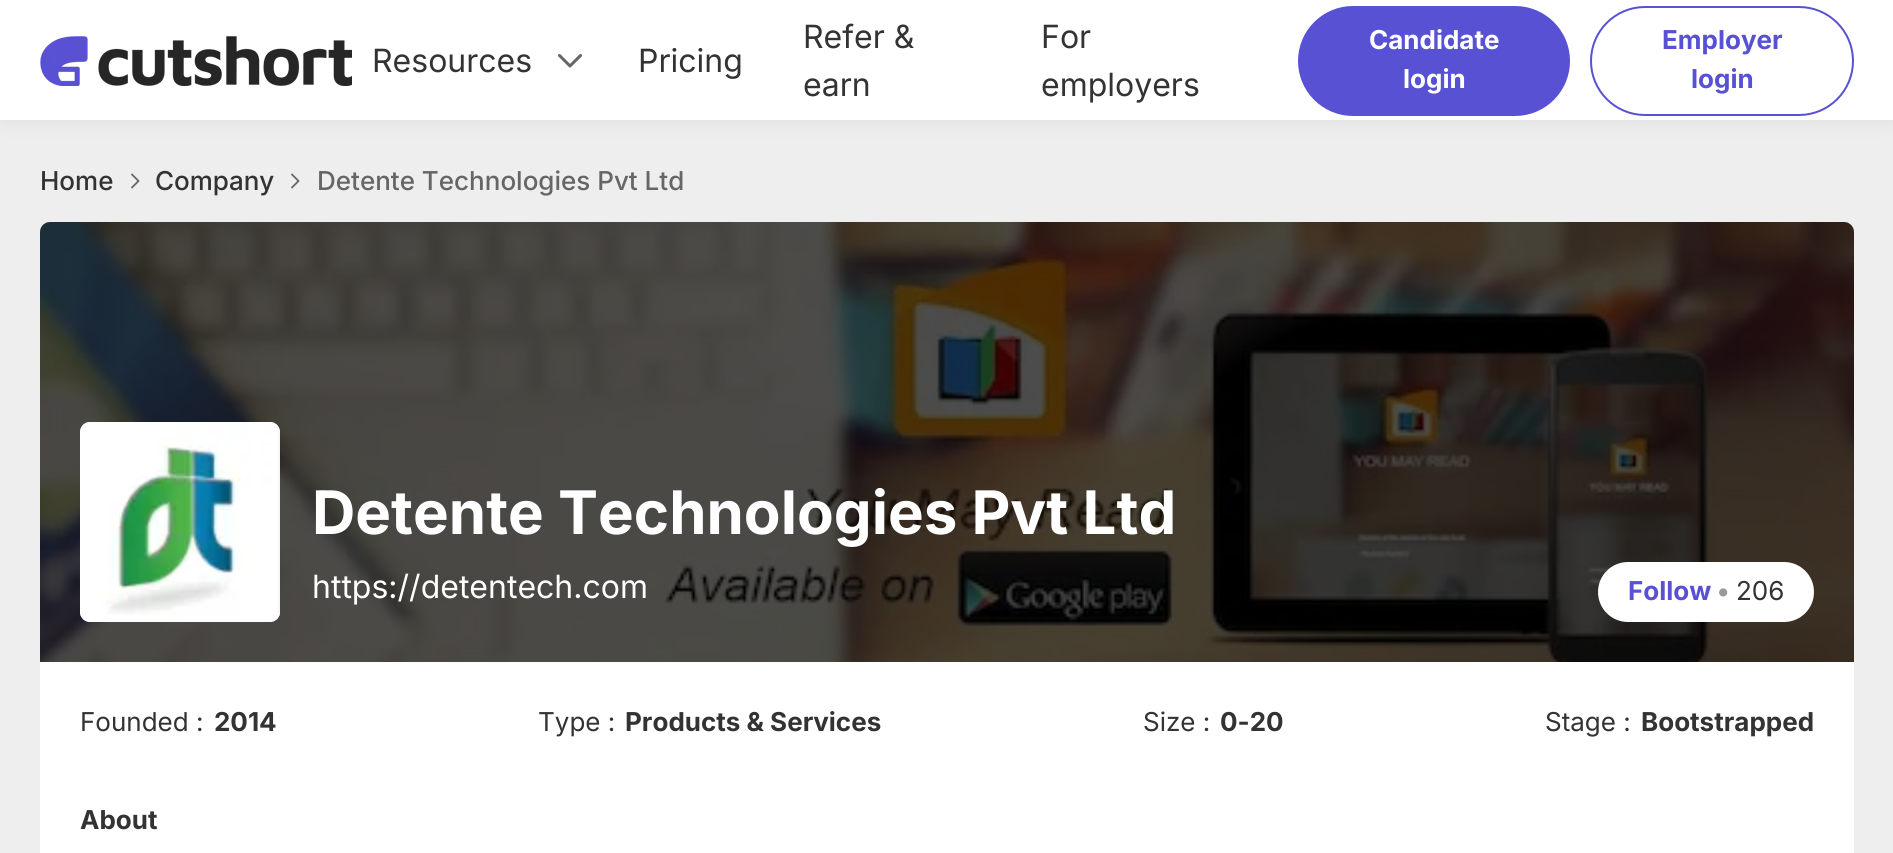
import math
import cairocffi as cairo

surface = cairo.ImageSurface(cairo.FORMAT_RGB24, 1893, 853)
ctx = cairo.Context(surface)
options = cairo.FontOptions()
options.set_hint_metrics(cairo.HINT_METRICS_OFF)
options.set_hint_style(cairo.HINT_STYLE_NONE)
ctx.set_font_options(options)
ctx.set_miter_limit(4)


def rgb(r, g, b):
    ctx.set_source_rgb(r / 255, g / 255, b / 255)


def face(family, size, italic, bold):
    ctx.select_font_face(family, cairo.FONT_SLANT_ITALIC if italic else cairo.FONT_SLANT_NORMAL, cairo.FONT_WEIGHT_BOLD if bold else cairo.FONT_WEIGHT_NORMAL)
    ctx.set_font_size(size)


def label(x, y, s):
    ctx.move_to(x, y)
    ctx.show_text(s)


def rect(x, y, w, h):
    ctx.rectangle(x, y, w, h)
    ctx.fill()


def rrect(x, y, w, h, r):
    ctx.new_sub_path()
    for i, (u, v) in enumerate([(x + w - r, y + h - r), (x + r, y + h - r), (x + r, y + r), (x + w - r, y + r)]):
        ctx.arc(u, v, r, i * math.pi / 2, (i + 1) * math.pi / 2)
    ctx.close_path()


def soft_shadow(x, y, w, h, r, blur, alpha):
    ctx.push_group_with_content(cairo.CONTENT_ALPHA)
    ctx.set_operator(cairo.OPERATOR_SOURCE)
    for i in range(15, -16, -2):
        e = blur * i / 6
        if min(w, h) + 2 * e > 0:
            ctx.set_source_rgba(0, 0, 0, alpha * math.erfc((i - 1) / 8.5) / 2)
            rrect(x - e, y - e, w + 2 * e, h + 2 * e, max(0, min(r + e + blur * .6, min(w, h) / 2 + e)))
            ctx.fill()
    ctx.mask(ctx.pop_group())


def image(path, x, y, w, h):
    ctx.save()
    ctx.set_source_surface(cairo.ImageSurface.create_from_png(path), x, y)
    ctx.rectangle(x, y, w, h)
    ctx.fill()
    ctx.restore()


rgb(238, 238, 238)
ctx.paint()
rgb(0, 0, 0)
soft_shadow(2, 8, 1890, 116, 0, 9, 0.05)
rgb(255, 255, 255)
rect(0, 0, 1893, 120)
image('image0.png', 40, 36, 312, 50)
face('Inter', 32, 0, 0)
rgb(51, 51, 51)
label(372, 72, 'Resources')
ctx.new_path()
ctx.move_to(580.5, 55.5)
ctx.line_to(570, 66)
ctx.line_to(559.5, 55.5)
rgb(102, 102, 102)
ctx.set_line_width(3)
ctx.set_line_cap(cairo.LINE_CAP_ROUND)
ctx.set_line_join(cairo.LINE_JOIN_ROUND)
ctx.stroke()
rgb(51, 51, 51)
label(638, 72, 'Pricing')
label(803, 48, 'Refer &')
label(803, 96, 'earn')
label(1041, 48, 'For')
label(1041, 96, 'employers')
rgb(88, 81, 211)
rrect(1298, 6, 272, 110, 55)
ctx.fill()
face('Inter', 26, 0, 1)
rgb(255, 255, 255)
label(1369, 49, 'Candidate')
label(1403, 88, 'login')
rrect(1591, 7, 262, 108, 54)
rgb(88, 81, 211)
ctx.set_line_width(2)
ctx.set_line_cap(cairo.LINE_CAP_BUTT)
ctx.set_line_join(cairo.LINE_JOIN_MITER)
ctx.stroke()
label(1662, 49, 'Employer')
label(1691, 88, 'login')
face('Inter Medium', 26, 0, 0)
rgb(51, 51, 51)
label(40, 190, 'Home')
ctx.new_path()
ctx.move_to(132, 174.5)
ctx.line_to(138.5, 181)
ctx.line_to(132, 187.5)
rgb(102, 102, 102)
ctx.set_line_width(1.8)
ctx.set_line_cap(cairo.LINE_CAP_ROUND)
ctx.set_line_join(cairo.LINE_JOIN_ROUND)
ctx.stroke()
rgb(51, 51, 51)
label(155, 190, 'Company')
ctx.new_path()
ctx.move_to(292, 174.5)
ctx.line_to(298.5, 181)
ctx.line_to(292, 187.5)
rgb(102, 102, 102)
ctx.stroke()
label(317, 190, 'Detente Technologies Pvt Ltd')
rgb(255, 255, 255)
ctx.new_path()
ctx.move_to(50, 222)
ctx.line_to(1844, 222)
ctx.curve_to(1849.5, 222, 1854, 226.5, 1854, 232)
ctx.line_to(1854, 662)
ctx.line_to(40, 662)
ctx.line_to(40, 232)
ctx.curve_to(40, 226.5, 44.5, 222, 50, 222)
ctx.close_path()
ctx.fill()
ctx.set_source_rgba(0, 0, 0, 0.5)
ctx.new_path()
ctx.move_to(50, 222)
ctx.line_to(1844, 222)
ctx.curve_to(1849.5, 222, 1854, 226.5, 1854, 232)
ctx.line_to(1854, 662)
ctx.line_to(40, 662)
ctx.line_to(40, 232)
ctx.curve_to(40, 226.5, 44.5, 222, 50, 222)
ctx.close_path()
ctx.fill()
image('image1.png', 40, 222, 1814, 440)
rgb(255, 255, 255)
rrect(80, 422, 200, 200, 10)
ctx.fill()
image('image2.png', 80, 422, 200, 200)
face('Inter', 60, 0, 1)
label(312, 534, 'Detente Technologies Pvt Ltd')
face('Inter', 32, 0, 0)
label(312, 598, 'https://detentech.com')
rrect(1598, 562, 216, 60, 30)
ctx.fill()
face('Inter', 26, 0, 1)
rgb(88, 81, 211)
label(1628, 600, 'Follow')
rgb(153, 153, 153)
label(1717, 600, '•')
face('Inter', 26, 0, 0)
rgb(51, 51, 51)
label(1736, 600, '206')
rgb(255, 255, 255)
rect(40, 662, 1814, 191)
rgb(51, 51, 51)
label(80, 731, 'Founded :')
face('Inter', 26, 0, 1)
label(214, 731, '2014')
face('Inter', 26, 0, 0)
label(538, 731, 'Type :')
face('Inter', 26, 0, 1)
label(625, 731, 'Products & Services')
face('Inter', 26, 0, 0)
label(1143, 731, 'Size :')
face('Inter', 26, 0, 1)
label(1220, 731, '0-20')
face('Inter', 26, 0, 0)
label(1545, 731, 'Stage :')
face('Inter', 26, 0, 1)
label(1641, 731, 'Bootstrapped')
label(80, 829, 'About')
surface.write_to_png('render.png')
